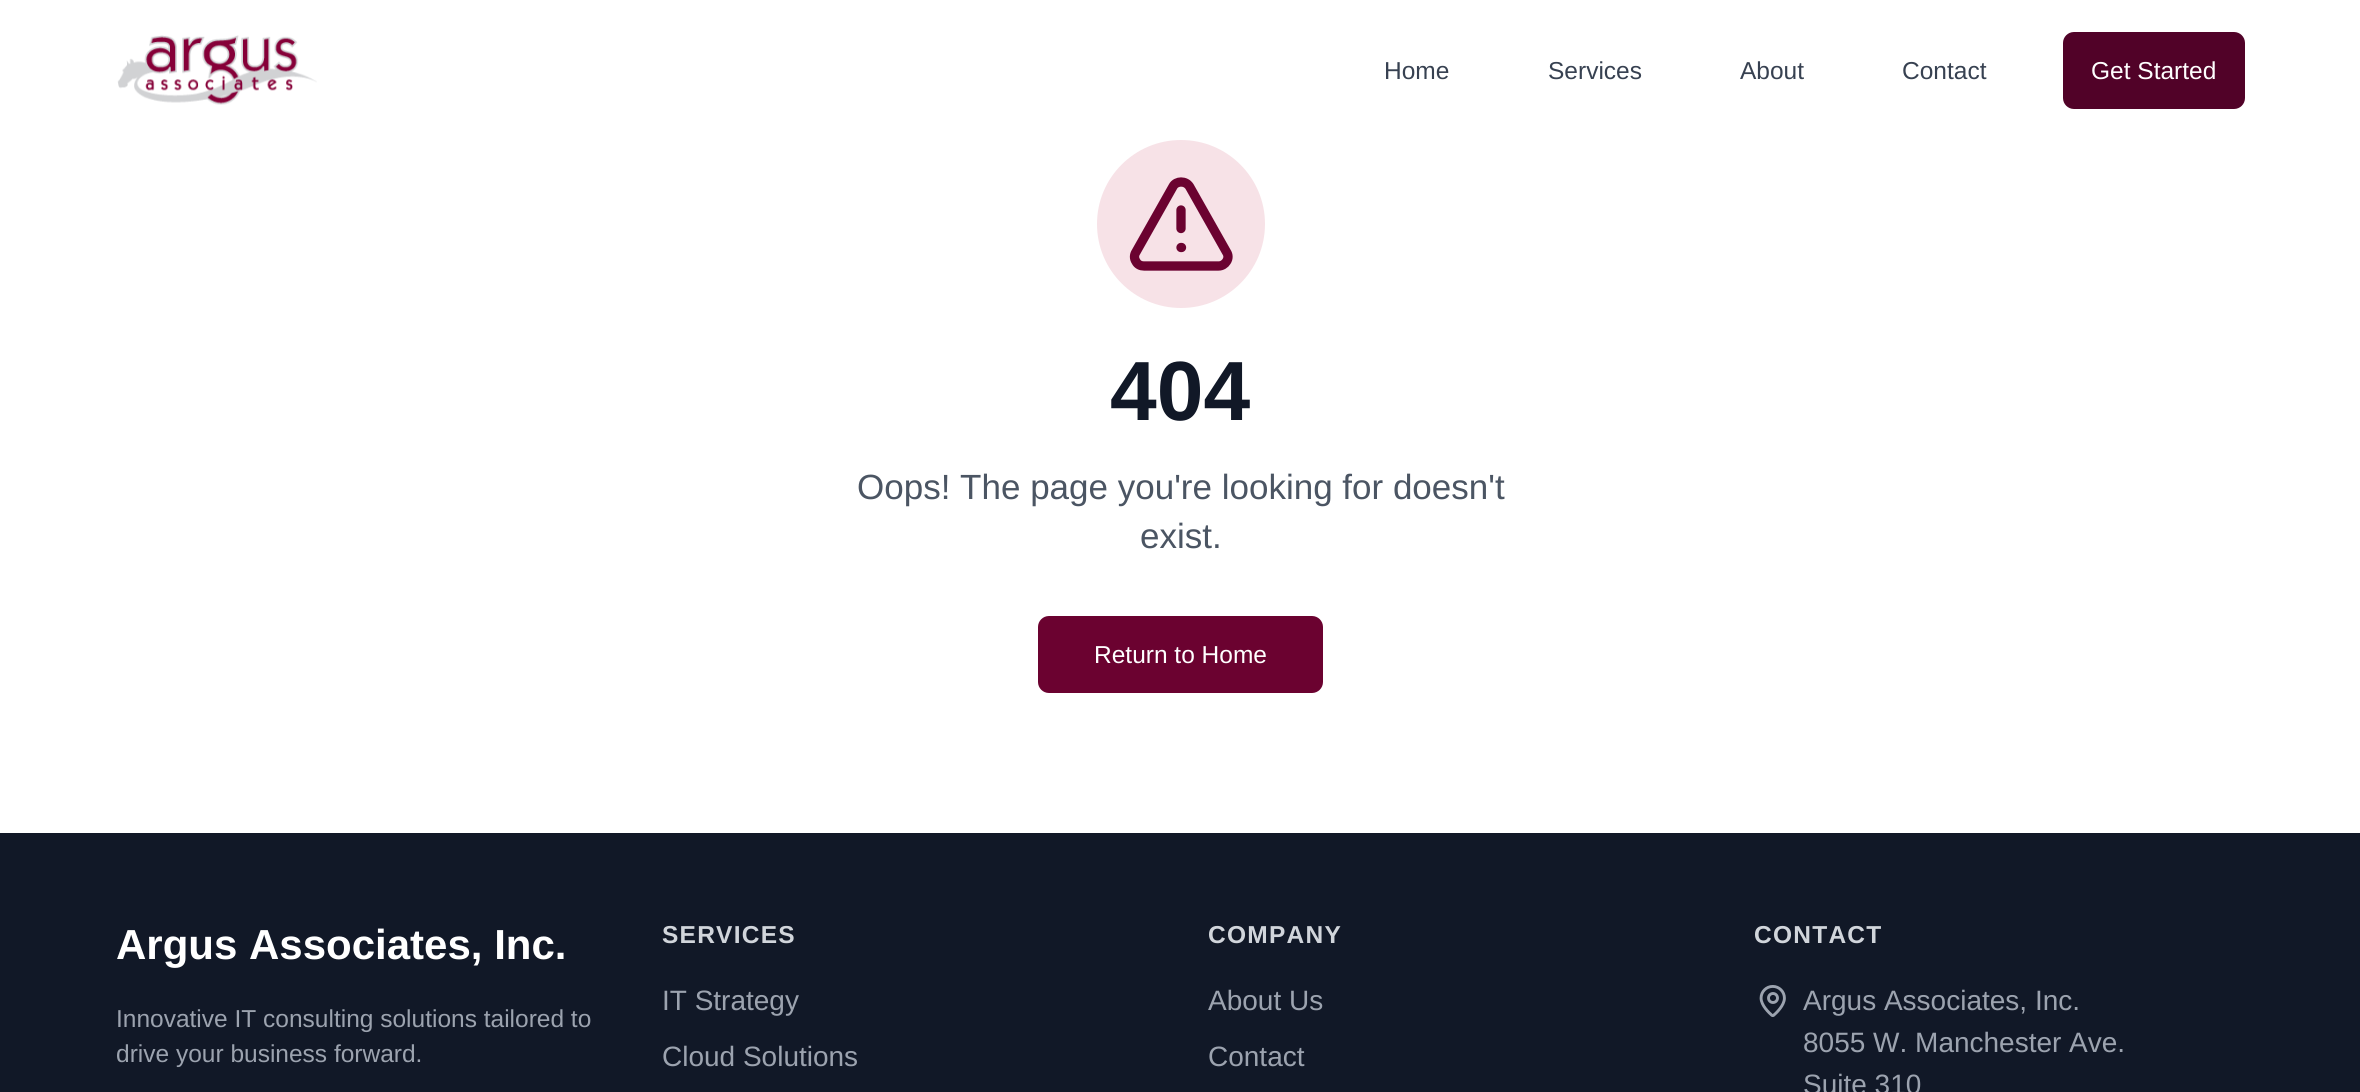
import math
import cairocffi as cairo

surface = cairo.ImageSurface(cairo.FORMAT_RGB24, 2360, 1092)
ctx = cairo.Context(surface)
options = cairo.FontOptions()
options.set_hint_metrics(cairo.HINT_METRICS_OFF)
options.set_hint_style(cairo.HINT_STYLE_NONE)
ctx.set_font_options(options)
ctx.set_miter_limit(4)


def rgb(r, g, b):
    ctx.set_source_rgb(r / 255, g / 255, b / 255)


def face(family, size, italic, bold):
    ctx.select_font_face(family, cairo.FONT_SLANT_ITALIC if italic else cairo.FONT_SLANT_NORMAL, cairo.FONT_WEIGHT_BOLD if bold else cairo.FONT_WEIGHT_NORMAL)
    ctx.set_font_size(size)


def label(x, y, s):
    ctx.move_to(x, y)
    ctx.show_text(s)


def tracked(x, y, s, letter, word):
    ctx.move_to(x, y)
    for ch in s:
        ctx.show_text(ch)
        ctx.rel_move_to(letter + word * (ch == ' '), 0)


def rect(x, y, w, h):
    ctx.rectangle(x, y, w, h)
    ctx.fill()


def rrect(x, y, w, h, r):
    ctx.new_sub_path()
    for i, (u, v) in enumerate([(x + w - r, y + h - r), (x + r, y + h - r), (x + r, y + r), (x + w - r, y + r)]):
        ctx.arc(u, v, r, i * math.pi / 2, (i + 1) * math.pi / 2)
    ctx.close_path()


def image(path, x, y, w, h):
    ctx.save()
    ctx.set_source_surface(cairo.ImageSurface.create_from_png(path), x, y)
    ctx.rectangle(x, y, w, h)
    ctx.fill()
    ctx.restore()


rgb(255, 255, 255)
ctx.paint()
image('image0.png', 117, 35, 200, 70)
face('Liberation Sans', 24.5, 0, 0)
rgb(55, 65, 81)
label(1384, 79, 'Home')
label(1548, 79, 'Services')
label(1740, 79, 'About')
label(1902, 79, 'Contact')
rgb(81, 2, 40)
rrect(2063, 32, 182, 77, 11)
ctx.fill()
rgb(255, 255, 255)
label(2091, 79, 'Get Started')
rgb(247, 226, 231)
ctx.new_path()
ctx.arc(1181, 224, 84, 0, 2 * math.pi)
ctx.fill()
ctx.new_path()
ctx.move_to(1226.5, 252)
ctx.line_to(1189.5, 186.5)
ctx.curve_to(1187.5, 183.5, 1184.5, 182, 1181, 182)
ctx.curve_to(1178, 182, 1174.5, 183.5, 1173, 186.5)
ctx.line_to(1136, 252)
ctx.curve_to(1134, 255, 1134, 258.5, 1136, 261.5)
ctx.curve_to(1137.5, 264.5, 1140.5, 266, 1144, 266)
ctx.line_to(1218.5, 266)
ctx.curve_to(1222, 266, 1225, 264, 1226.5, 261.5)
ctx.curve_to(1228.5, 258.5, 1228.5, 255, 1226.5, 252)
rgb(107, 2, 48)
ctx.set_line_width(9.3)
ctx.set_line_cap(cairo.LINE_CAP_ROUND)
ctx.set_line_join(cairo.LINE_JOIN_ROUND)
ctx.stroke()
ctx.new_path()
ctx.move_to(1181, 210)
ctx.line_to(1181, 228.5)
ctx.move_to(1181, 247.5)
ctx.line_to(1181.5, 247.5)
ctx.stroke()
face('Liberation Sans', 84, 0, 1)
rgb(17, 24, 39)
label(1110, 420, '404')
face('Liberation Sans', 35, 0, 0)
rgb(75, 85, 99)
label(857, 499, 'Oops! The page you\'re looking for doesn\'t')
label(1140, 548, 'exist.')
rgb(107, 2, 48)
rrect(1038, 616, 285, 77, 11)
ctx.fill()
face('Liberation Sans', 24.5, 0, 0)
rgb(255, 255, 255)
label(1094, 663, 'Return to Home')
rgb(17, 24, 39)
rect(0, 833, 2360, 259)
face('Liberation Sans', 42, 0, 1)
rgb(255, 255, 255)
label(116, 959, 'Argus Associates, Inc.')
face('Liberation Sans', 24.5, 0, 0)
rgb(156, 163, 175)
label(116, 1027, 'Innovative IT consulting solutions tailored to')
label(116, 1062, 'drive your business forward.')
face('Liberation Sans', 24.5, 0, 1)
rgb(209, 213, 219)
tracked(662, 943, 'SERVICES', 1.25, 0)
face('Liberation Sans', 28, 0, 0)
rgb(156, 163, 175)
label(662, 1010, 'IT Strategy')
label(662, 1066, 'Cloud Solutions')
face('Liberation Sans', 24.5, 0, 1)
rgb(209, 213, 219)
tracked(1208, 943, 'COMPANY', 1.25, 0)
face('Liberation Sans', 28, 0, 0)
rgb(156, 163, 175)
label(1208, 1010, 'About Us')
label(1208, 1066, 'Contact')
face('Liberation Sans', 24.5, 0, 1)
rgb(209, 213, 219)
tracked(1754, 943, 'CONTACT', 1.25, 0)
image('image1.png', 1759, 985, 27, 32)
face('Liberation Sans', 28, 0, 0)
rgb(156, 163, 175)
label(1803, 1010, 'Argus Associates, Inc.')
label(1803, 1052, '8055 W. Manchester Ave.')
label(1803, 1094, 'Suite 310')
surface.write_to_png('render.png')
